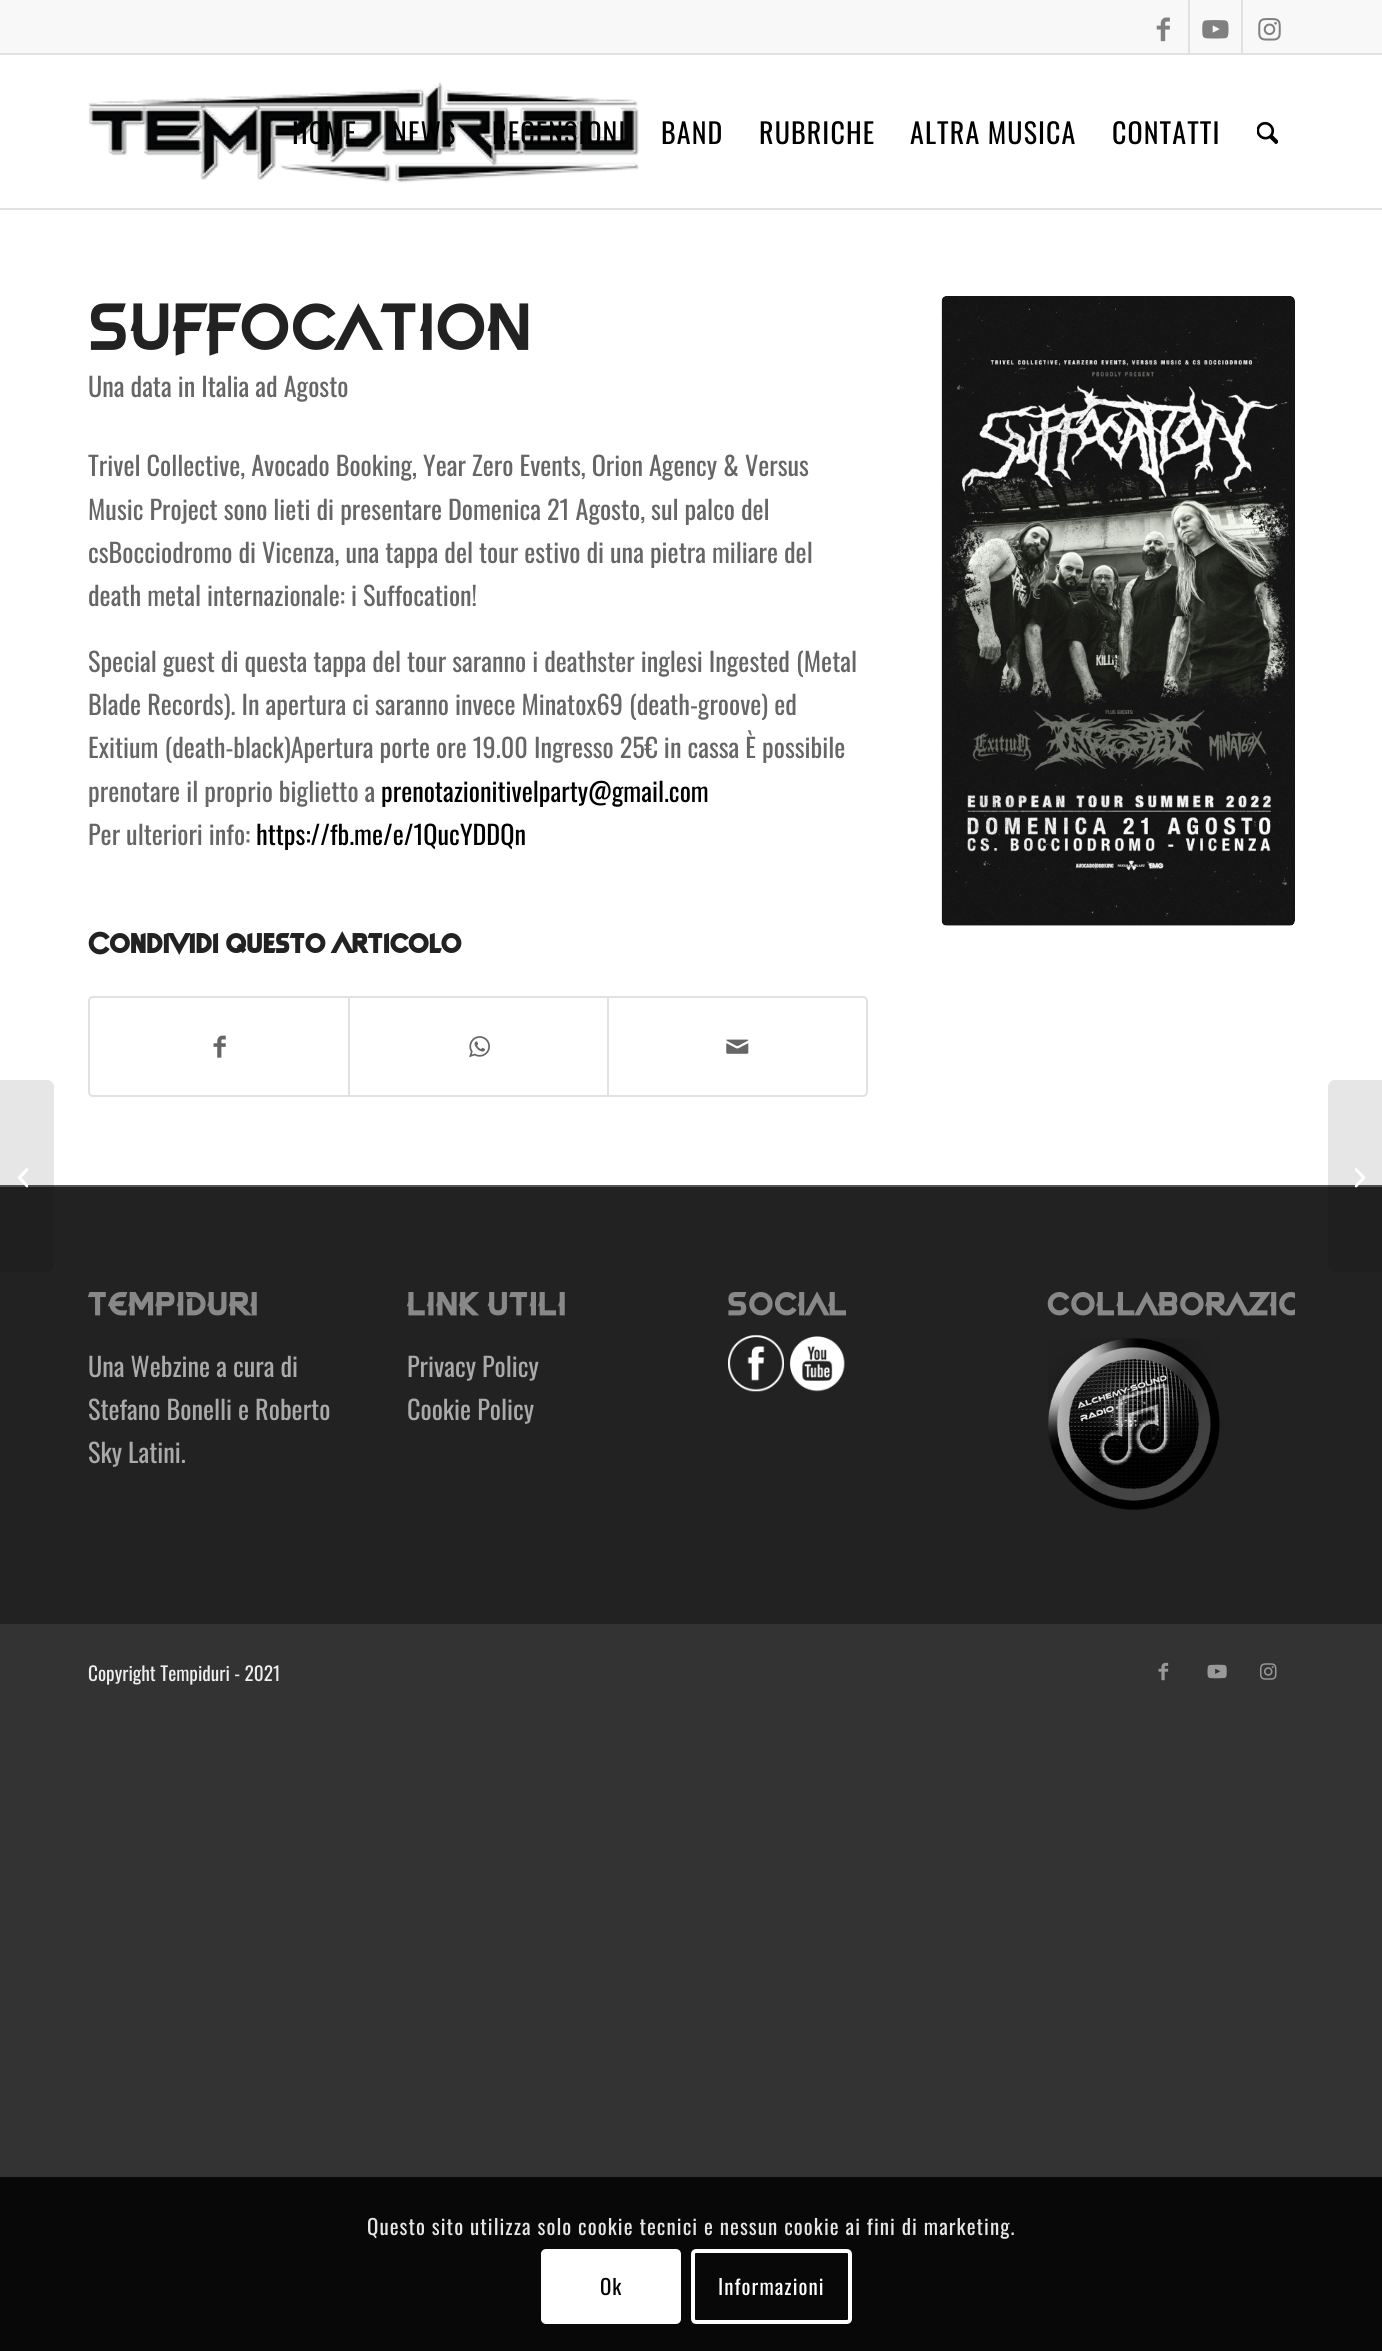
import math
import cairocffi as cairo

surface = cairo.ImageSurface(cairo.FORMAT_RGB24, 1382, 2351)
ctx = cairo.Context(surface)
options = cairo.FontOptions()
options.set_hint_metrics(cairo.HINT_METRICS_OFF)
options.set_hint_style(cairo.HINT_STYLE_NONE)
ctx.set_font_options(options)
ctx.set_miter_limit(4)


def rgb(r, g, b):
    ctx.set_source_rgb(r / 255, g / 255, b / 255)


def face(family, size, italic, bold):
    ctx.select_font_face(family, cairo.FONT_SLANT_ITALIC if italic else cairo.FONT_SLANT_NORMAL, cairo.FONT_WEIGHT_BOLD if bold else cairo.FONT_WEIGHT_NORMAL)
    ctx.set_font_size(size)


def label(x, y, s):
    ctx.move_to(x, y)
    ctx.show_text(s)


def tracked(x, y, s, letter, word):
    ctx.move_to(x, y)
    for ch in s:
        ctx.show_text(ch)
        ctx.rel_move_to(letter + word * (ch == ' '), 0)


def rect(x, y, w, h):
    ctx.rectangle(x, y, w, h)
    ctx.fill()


def rrect(x, y, w, h, r):
    ctx.new_sub_path()
    for i, (u, v) in enumerate([(x + w - r, y + h - r), (x + r, y + h - r), (x + r, y + r), (x + w - r, y + r)]):
        ctx.arc(u, v, r, i * math.pi / 2, (i + 1) * math.pi / 2)
    ctx.close_path()


def image(path, x, y, w, h):
    ctx.save()
    ctx.set_source_surface(cairo.ImageSurface.create_from_png(path), x, y)
    ctx.rectangle(x, y, w, h)
    ctx.fill()
    ctx.restore()


rgb(51, 51, 51)
ctx.paint()
rgb(255, 255, 255)
rect(0, 55, 1382, 1130)
rgb(248, 248, 248)
rect(0, 0, 1382, 53)
rgb(225, 225, 225)
rect(0, 53, 1382, 2)
rect(1188, 0, 2, 53)
image('image0.png', 1156, 17, 14, 25)
rect(1241, 0, 2, 53)
image('image1.png', 1202, 20, 27, 19)
image('image2.png', 1258, 18, 23, 23)
rect(0, 208, 1382, 2)
image('image3.png', 88, 82, 551, 101)
face('Oswald', 28, 0, 0)
rgb(0, 0, 0)
tracked(292, 144, 'HOME', 1.1, 0)
tracked(392, 144, 'NEWS', 1.1, 0)
tracked(492, 144, 'RECENSIONI', 1.1, 0)
tracked(661, 144, 'BAND', 1.1, 0)
tracked(759, 144, 'RUBRICHE', 1.1, 0)
tracked(910, 144, 'ALTRA MUSICA', 1.1, 0)
tracked(1112, 144, 'CONTATTI', 1.1, 0)
image('image4.png', 1257, 121, 21, 23)
rgb(34, 34, 34)
rect(0, 1187, 1382, 437)
rgb(85, 85, 85)
rect(0, 1185, 1382, 2)
ctx.set_source_rgba(0, 0, 0, 0.1)
ctx.new_path()
ctx.move_to(0, 1080)
ctx.line_to(47, 1080)
ctx.curve_to(51, 1080, 54, 1083, 54, 1087)
ctx.line_to(54, 1265)
ctx.curve_to(54, 1269, 51, 1272, 47, 1272)
ctx.line_to(0, 1272)
ctx.close_path()
ctx.fill()
image('image5.png', 18, 1168, 10, 20)
face('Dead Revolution', 59.5, 0, 0)
rgb(34, 34, 34)
tracked(88, 347, 'SUFFOCATION', 1.75, 0)
face('Oswald', 26.25, 0, 0)
rgb(102, 102, 102)
label(88, 397, 'Una data in Italia ad Agosto')
label(88, 476, 'Trivel Collective, Avocado Booking, Year Zero Events, Orion Agency & Versus')
label(88, 520, 'Music Project sono lieti di presentare Domenica 21 Agosto, sul palco del')
label(88, 563, 'csBocciodromo di Vicenza, una tappa del tour estivo di una pietra miliare del')
label(88, 606, 'death metal internazionale: i Suffocation!')
label(88, 672, 'Special guest di questa tappa del tour saranno i deathster inglesi Ingested (Metal')
label(88, 715, 'Blade Records). In apertura ci saranno invece Minatox69 (death-groove) ed')
label(88, 758, 'Exitium (death-black)Apertura porte ore 19.00 Ingresso 25€ in cassa È possibile')
label(88, 802, 'prenotare il proprio biglietto a')
rgb(0, 0, 0)
label(381, 802, 'prenotazionitivelparty@gmail.com')
rgb(102, 102, 102)
label(88, 845, 'Per ulteriori info:')
rgb(0, 0, 0)
label(256, 845, 'https://fb.me/e/1QucYDDQn')
face('Dead Revolution', 28, 0, 1)
rgb(34, 34, 34)
label(88, 953, 'Condividi questo articolo')
rrect(89, 997, 778, 99, 4)
rgb(225, 225, 225)
ctx.stroke()
image('image6.png', 213, 1035, 13, 23)
rect(348, 998, 2, 98)
image('image7.png', 469, 1036, 21, 22)
rect(607, 998, 2, 98)
image('image8.png', 726, 1039, 23, 15)
image('image9.png', 941, 296, 354, 630)
face('Dead Revolution', 28.9, 0, 1)
rgb(136, 136, 136)
tracked(88, 1314, 'TEMPIDURI', 1.75, 0)
face('Oswald', 26.25, 0, 0)
rgb(170, 170, 170)
label(88, 1377, 'Una Webzine a cura di')
label(88, 1420, 'Stefano Bonelli e Roberto')
label(88, 1463, 'Sky Latini.')
face('Dead Revolution', 28.9, 0, 1)
rgb(136, 136, 136)
tracked(407, 1314, 'LINK UTILI', 1.75, 0)
face('Oswald', 26.25, 0, 0)
rgb(170, 170, 170)
label(407, 1377, 'Privacy Policy')
label(407, 1420, 'Cookie Policy')
face('Dead Revolution', 28.9, 0, 1)
rgb(136, 136, 136)
tracked(727, 1314, 'SOCIAL', 1.75, 0)
image('image10.png', 728, 1335, 56, 57)
image('image11.png', 789, 1336, 56, 56)
ctx.save()
ctx.rectangle(1047, 1265, 248, 256)
ctx.clip()
tracked(1047, 1314, 'COLLABORAZIO', 1.75, 0)
ctx.restore()
image('image12.png', 1048, 1338, 172, 172)
face('Oswald', 19.25, 0, 0)
rgb(238, 238, 238)
label(88, 1681, 'Copyright Tempiduri - 2021')
image('image13.png', 1158, 1662, 11, 19)
image('image14.png', 1207, 1664, 20, 15)
image('image15.png', 1260, 1663, 17, 17)
ctx.set_source_rgba(0, 0, 0, 0.1)
ctx.new_path()
ctx.move_to(1335, 1080)
ctx.line_to(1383, 1080)
ctx.line_to(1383, 1272)
ctx.line_to(1335, 1272)
ctx.curve_to(1331, 1272, 1328, 1269, 1328, 1265)
ctx.line_to(1328, 1087)
ctx.curve_to(1328, 1083, 1331, 1080, 1335, 1080)
ctx.close_path()
ctx.fill()
image('image16.png', 1355, 1168, 10, 20)
rgb(8, 8, 8)
rect(0, 2177, 1382, 174)
face('Oswald', 21, 0, 0)
rgb(230, 230, 230)
tracked(367, 2235, 'Questo sito utilizza solo cookie tecnici e nessun cookie ai fini di marketing.', 1.05, 0)
rgb(255, 255, 255)
rrect(541, 2249, 140, 75, 5)
ctx.fill()
rgb(0, 0, 0)
tracked(600, 2295, 'Ok', 1.05, 0)
rrect(693, 2251, 157, 71, 3)
rgb(255, 255, 255)
ctx.set_line_width(4)
ctx.stroke()
tracked(718, 2295, 'Informazioni', 1.05, 0)
surface.write_to_png('render.png')
